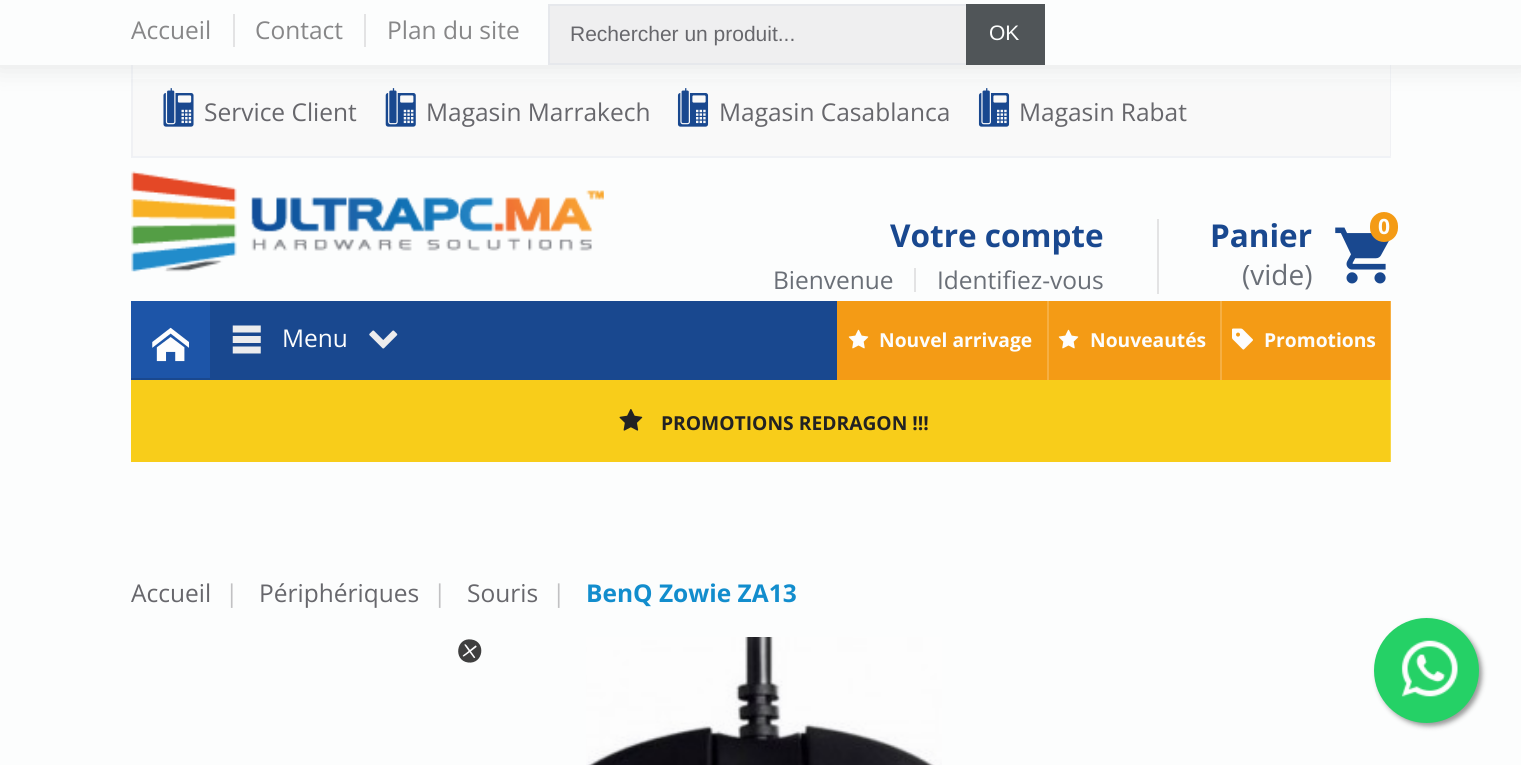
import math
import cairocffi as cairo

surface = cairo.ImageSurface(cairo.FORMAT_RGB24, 1521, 765)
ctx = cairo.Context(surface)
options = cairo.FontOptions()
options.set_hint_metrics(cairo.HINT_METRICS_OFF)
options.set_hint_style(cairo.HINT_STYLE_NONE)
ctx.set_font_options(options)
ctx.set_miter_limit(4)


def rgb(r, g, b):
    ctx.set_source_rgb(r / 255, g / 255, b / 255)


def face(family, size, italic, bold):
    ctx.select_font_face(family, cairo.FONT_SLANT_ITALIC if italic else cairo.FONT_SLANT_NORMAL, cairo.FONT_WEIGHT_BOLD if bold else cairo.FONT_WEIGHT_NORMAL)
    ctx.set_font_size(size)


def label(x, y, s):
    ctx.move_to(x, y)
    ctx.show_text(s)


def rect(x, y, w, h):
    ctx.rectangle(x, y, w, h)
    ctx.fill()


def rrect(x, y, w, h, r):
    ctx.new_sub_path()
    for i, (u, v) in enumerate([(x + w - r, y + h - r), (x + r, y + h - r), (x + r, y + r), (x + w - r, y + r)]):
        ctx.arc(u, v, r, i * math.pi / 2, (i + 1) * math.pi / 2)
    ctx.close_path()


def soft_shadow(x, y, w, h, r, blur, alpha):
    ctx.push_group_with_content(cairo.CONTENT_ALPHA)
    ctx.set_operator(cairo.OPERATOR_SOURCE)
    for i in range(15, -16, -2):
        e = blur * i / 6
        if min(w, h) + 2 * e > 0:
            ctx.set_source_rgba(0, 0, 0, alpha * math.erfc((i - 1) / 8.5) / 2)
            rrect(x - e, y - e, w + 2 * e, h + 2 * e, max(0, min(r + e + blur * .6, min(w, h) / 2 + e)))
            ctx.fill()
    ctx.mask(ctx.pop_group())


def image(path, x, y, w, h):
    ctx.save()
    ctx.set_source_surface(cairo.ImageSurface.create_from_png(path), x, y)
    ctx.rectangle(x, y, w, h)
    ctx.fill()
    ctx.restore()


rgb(252, 253, 253)
ctx.paint()
rgb(0, 0, 1)
soft_shadow(-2, -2, 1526, 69, 0, 13, 0.1)
rgb(252, 253, 253)
rect(0, 0, 1521, 65)
face('Open Sans', 24.5, 0, 0)
rgb(135, 135, 136)
label(131, 39, 'Accueil')
rgb(227, 227, 228)
rect(233, 14, 2, 33)
rgb(135, 135, 136)
label(255, 39, 'Contact')
rgb(227, 227, 228)
rect(364, 14, 2, 33)
rgb(135, 135, 136)
label(387, 39, 'Plan du site')
rgb(239, 239, 240)
ctx.rectangle(549, 5, 418, 59)
ctx.fill_preserve()
rgb(230, 232, 236)
ctx.stroke()
face('Liberation Sans', 21, 0, 0)
rgb(103, 103, 108)
label(570, 41, 'Rechercher un produit...')
rgb(80, 85, 88)
rect(966, 4, 79, 61)
rgb(252, 253, 253)
label(989, 40, 'OK')
ctx.set_source_rgba(0.925, 0.925, 0.929, 0.2)
rect(131, 79, 1260, 79)
ctx.set_source_rgba(0.098, 0.282, 0.561, 0.04)
ctx.new_path()
ctx.move_to(1391, 65)
ctx.line_to(1391, 158)
ctx.line_to(1390, 156)
ctx.line_to(1390, 65)
ctx.close_path()
ctx.fill()
rgb(240, 242, 246)
ctx.new_path()
ctx.move_to(1391, 158)
ctx.line_to(131, 158)
ctx.line_to(133, 156)
ctx.line_to(1390, 156)
ctx.close_path()
ctx.fill()
ctx.set_source_rgba(0.098, 0.282, 0.561, 0.04)
ctx.new_path()
ctx.move_to(131, 158)
ctx.line_to(131, 65)
ctx.line_to(133, 65)
ctx.line_to(133, 156)
ctx.close_path()
ctx.fill()
image('image0.png', 163, 88, 31, 39)
face('Open Sans', 24.5, 0, 0)
rgb(103, 103, 108)
label(204, 121, 'Service Client')
image('image1.png', 385, 88, 31, 39)
label(426, 121, 'Magasin Marrakech')
image('image2.png', 677, 88, 32, 39)
label(719, 121, 'Magasin Casablanca')
image('image2.png', 978, 88, 32, 39)
label(1019, 121, 'Magasin Rabat')
image('image3.png', 131, 171, 473, 101)
face('Open Sans', 31.5, 0, 1)
rgb(25, 72, 143)
label(890, 247, 'Votre compte')
face('Open Sans', 24.5, 0, 0)
rgb(106, 111, 119)
label(773, 289, 'Bienvenue')
rgb(227, 227, 228)
rect(914, 268, 2, 24)
rgb(106, 111, 119)
label(937, 289, 'Identifiez-vous')
rgb(227, 227, 228)
rect(1157, 219, 2, 75)
face('Open Sans', 31.5, 0, 1)
rgb(25, 72, 143)
label(1210, 247, 'Panier')
image('image4.png', 1335, 227, 55, 57)
rgb(244, 155, 21)
rrect(1370, 212, 28, 30, 14)
ctx.fill()
face('Open Sans', 21, 0, 1)
rgb(252, 253, 253)
label(1378, 234, '0')
face('Open Sans', 28, 0, 0)
rgb(106, 111, 119)
label(1242, 285, '(vide)')
rgb(25, 72, 143)
rect(131, 301, 706, 79)
rgb(29, 85, 168)
rect(131, 301, 79, 77)
image('image5.png', 152, 327, 37, 35)
image('image6.png', 232, 325, 29, 29)
face('Open Sans', 24.5, 0, 0)
rgb(252, 253, 253)
label(282, 347, 'Menu')
image('image7.png', 369, 330, 29, 19)
rgb(244, 155, 21)
rect(837, 301, 210, 79)
rgb(246, 175, 67)
rect(1047, 301, 2, 79)
image('image8.png', 848, 329, 21, 20)
face('Open Sans', 19.25, 0, 1)
rgb(252, 253, 253)
label(879, 347, 'Nouvel arrivage')
rgb(244, 155, 21)
rect(1049, 301, 171, 79)
rgb(246, 175, 67)
rect(1220, 301, 2, 79)
image('image8.png', 1058, 329, 21, 20)
rgb(252, 253, 253)
label(1090, 347, 'Nouveautés')
rgb(244, 155, 21)
rect(1222, 301, 168, 79)
rgb(246, 175, 67)
rect(1390, 301, 1, 79)
image('image9.png', 1232, 328, 21, 22)
rgb(252, 253, 253)
label(1264, 347, 'Promotions')
rgb(248, 205, 26)
rect(131, 380, 1259, 82)
rgb(248, 215, 71)
rect(1390, 380, 1, 82)
image('image10.png', 619, 409, 24, 22)
rgb(34, 34, 35)
label(661, 430, 'PROMOTIONS REDRAGON !!!')
face('Open Sans', 24.5, 0, 0)
rgb(103, 103, 108)
label(131, 602, 'Accueil')
rgb(193, 193, 195)
label(225, 602, '|')
rgb(103, 103, 108)
label(259, 602, 'Périphériques')
rgb(193, 193, 195)
label(433, 602, '|')
rgb(103, 103, 108)
label(467, 602, 'Souris')
rgb(193, 193, 195)
label(552, 602, '|')
face('Open Sans', 24.5, 0, 1)
rgb(18, 141, 205)
label(586, 602, 'BenQ Zowie ZA13')
image('image11.png', 586, 637, 356, 128)
rgb(63, 63, 63)
ctx.new_path()
ctx.move_to(468, 662.5)
ctx.curve_to(453, 660.5, 456, 637, 471.5, 639.5)
ctx.curve_to(486.5, 641.5, 483.5, 664.5, 468, 662.5)
ctx.close_path()
ctx.fill()
rgb(254, 254, 255)
ctx.new_path()
ctx.move_to(473.5, 657.5)
ctx.curve_to(472.5, 656, 464.5, 645.5, 464.5, 645)
ctx.curve_to(464.5, 643, 466.5, 645, 467.5, 646.5)
ctx.line_to(475, 657)
ctx.curve_to(475.5, 657.5, 475, 658, 474, 658)
ctx.close_path()
ctx.fill()
ctx.new_path()
ctx.move_to(476.5, 647)
ctx.curve_to(475, 648, 464.5, 656.5, 463.5, 656.5)
ctx.curve_to(461.5, 656, 464, 654.5, 465.5, 653.5)
ctx.line_to(475.5, 645.5)
ctx.curve_to(476, 645.5, 476.5, 646, 476.5, 646.5)
ctx.close_path()
ctx.fill()
rgb(151, 152, 152)
soft_shadow(1377, 621, 105, 105, 52.5, 2.5, 1)
rgb(37, 209, 102)
ctx.arc(1426.5, 670.5, 52.5, 0, 2 * math.pi)
ctx.fill()
image('image12.png', 1401, 640, 57, 57)
surface.write_to_png('render.png')
